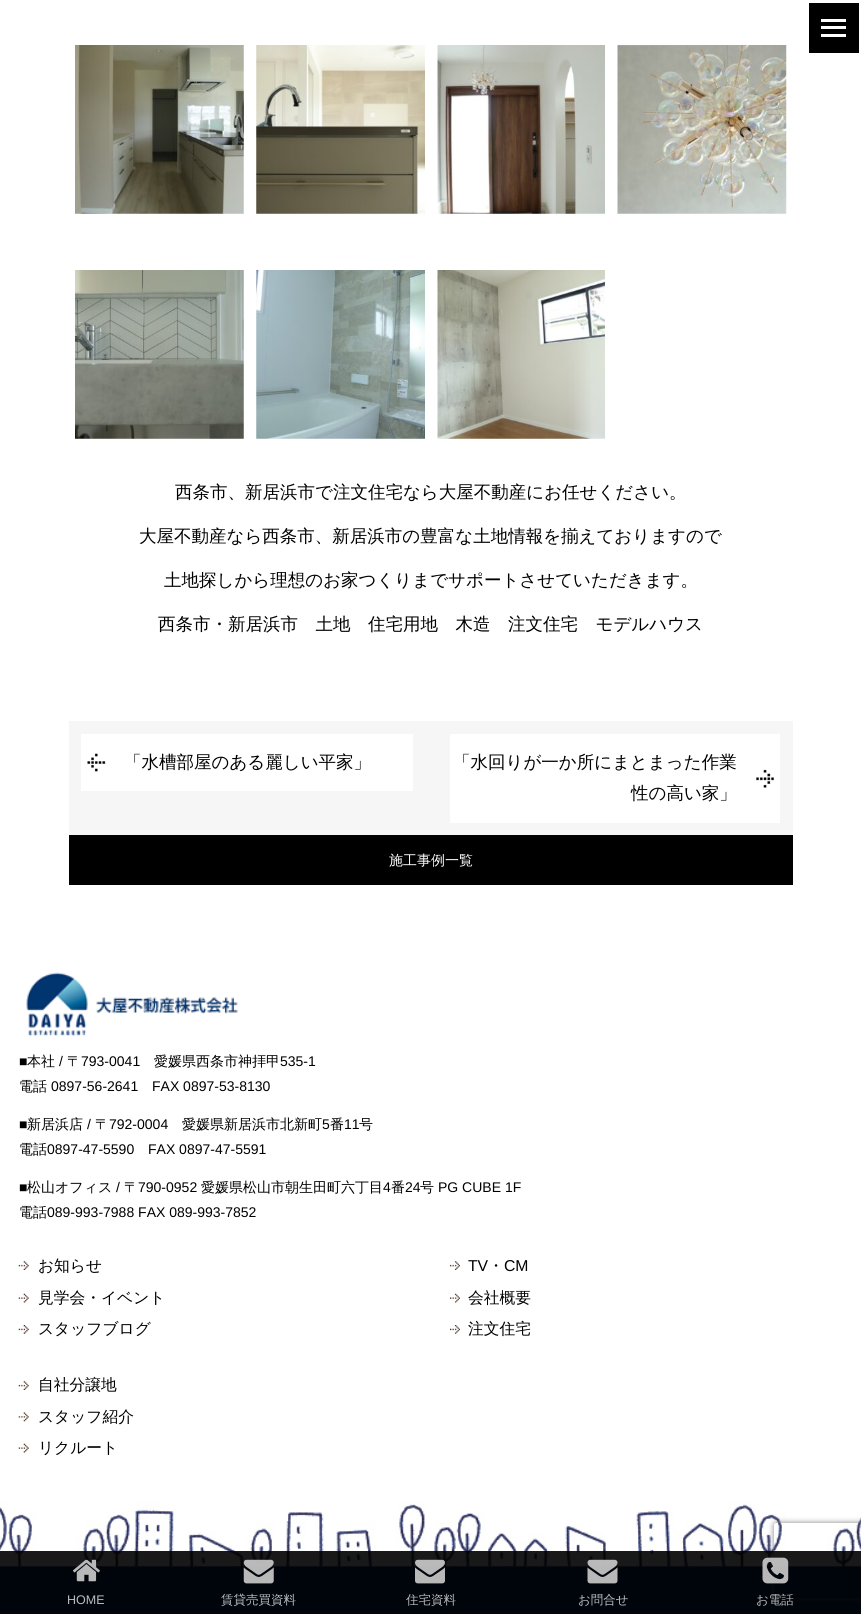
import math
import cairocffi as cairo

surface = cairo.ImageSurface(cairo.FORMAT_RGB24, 861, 1614)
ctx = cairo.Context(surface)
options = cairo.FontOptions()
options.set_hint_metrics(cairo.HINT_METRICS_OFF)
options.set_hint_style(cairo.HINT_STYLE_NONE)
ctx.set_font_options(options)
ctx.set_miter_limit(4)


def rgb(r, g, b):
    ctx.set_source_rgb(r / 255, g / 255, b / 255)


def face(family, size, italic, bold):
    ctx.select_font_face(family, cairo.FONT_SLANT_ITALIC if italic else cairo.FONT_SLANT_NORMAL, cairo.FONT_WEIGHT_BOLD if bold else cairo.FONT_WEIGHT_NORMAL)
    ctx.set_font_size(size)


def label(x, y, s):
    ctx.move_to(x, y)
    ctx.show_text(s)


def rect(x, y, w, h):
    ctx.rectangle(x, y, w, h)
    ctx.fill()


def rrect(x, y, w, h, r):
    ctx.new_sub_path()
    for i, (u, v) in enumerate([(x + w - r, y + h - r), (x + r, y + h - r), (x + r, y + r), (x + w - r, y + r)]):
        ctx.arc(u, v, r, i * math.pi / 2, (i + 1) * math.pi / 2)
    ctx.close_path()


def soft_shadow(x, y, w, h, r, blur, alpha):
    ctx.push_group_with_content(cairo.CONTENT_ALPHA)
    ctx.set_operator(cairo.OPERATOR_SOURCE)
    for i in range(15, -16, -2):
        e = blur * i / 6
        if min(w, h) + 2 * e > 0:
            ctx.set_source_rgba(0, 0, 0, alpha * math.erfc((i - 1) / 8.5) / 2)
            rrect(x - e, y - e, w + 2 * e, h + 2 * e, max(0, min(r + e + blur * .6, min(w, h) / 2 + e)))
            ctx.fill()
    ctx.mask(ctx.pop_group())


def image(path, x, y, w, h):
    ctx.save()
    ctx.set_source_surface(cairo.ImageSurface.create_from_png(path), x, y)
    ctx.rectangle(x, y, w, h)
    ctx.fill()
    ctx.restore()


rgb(255, 255, 255)
ctx.paint()
rgb(0, 0, 0)
rect(809, 3, 50, 50)
rgb(255, 255, 255)
rect(821, 19, 25, 3)
rect(821, 26, 25, 3)
rect(821, 34, 25, 3)
image('image0.png', 75, 45, 169, 169)
image('image1.png', 256, 45, 169, 169)
image('image2.png', 437, 45, 168, 169)
image('image3.png', 617, 45, 170, 169)
image('image4.png', 75, 270, 169, 169)
image('image5.png', 256, 270, 169, 169)
image('image6.png', 437, 270, 168, 169)
face('WenQuanYi Zen Hei Medium', 17.5, 0, 0)
rgb(0, 0, 0)
label(175, 498, '西条市、新居浜市で注文住宅なら大屋不動産にお任せください。')
label(139, 542, '大屋不動産なら西条市、新居浜市の豊富な土地情報を揃えておりますので')
label(164, 586, '土地探しから理想のお家つくりまでサポートさせていただきます。')
label(158, 630, '西条市・新居浜市　土地　住宅用地　木造　注文住宅　モデルハウス')
rgb(246, 246, 246)
rect(69, 721, 724, 114)
rgb(255, 255, 255)
rect(81, 734, 332, 57)
image('image7.png', 87, 753, 19, 19)
rgb(0, 0, 0)
label(124, 768, '「水槽部屋のある麗しい平家」')
rgb(255, 255, 255)
rect(450, 734, 330, 89)
image('image8.png', 756, 769, 18, 19)
rgb(0, 0, 0)
label(453, 768, '「水回りが一か所にまとまった作業')
label(631, 799, '性の高い家」')
rect(69, 835, 724, 50)
face('WenQuanYi Zen Hei Medium', 14, 0, 0)
rgb(255, 255, 255)
label(389, 865, '施工事例一覧')
image('image9.png', 26, 972, 212, 65)
face('Liberation Sans', 14, 0, 0)
rgb(0, 0, 0)
label(19, 1066, '■')
face('WenQuanYi Zen Hei Medium', 14, 0, 0)
label(27, 1066, '本社')
face('Liberation Sans', 14, 0, 0)
label(59, 1066, '/')
face('WenQuanYi Zen Hei Medium', 14, 0, 0)
label(67, 1066, '〒')
face('Liberation Sans', 14, 0, 0)
label(81, 1066, '793-0041')
face('WenQuanYi Zen Hei Medium', 14, 0, 0)
label(154, 1066, '愛媛県西条市神拝甲')
face('Liberation Sans', 14, 0, 0)
label(280, 1066, '535-1')
face('WenQuanYi Zen Hei Medium', 14, 0, 0)
label(19, 1091, '電話')
face('Liberation Sans', 14, 0, 0)
label(51, 1091, '0897-56-2641')
label(152, 1091, 'FAX 0897-53-8130')
label(19, 1129, '■')
face('WenQuanYi Zen Hei Medium', 14, 0, 0)
label(27, 1129, '新居浜店')
face('Liberation Sans', 14, 0, 0)
label(87, 1129, '/')
face('WenQuanYi Zen Hei Medium', 14, 0, 0)
label(95, 1129, '〒')
face('Liberation Sans', 14, 0, 0)
label(109, 1129, '792-0004')
face('WenQuanYi Zen Hei Medium', 14, 0, 0)
label(182, 1129, '愛媛県新居浜市北新町')
face('Liberation Sans', 14, 0, 0)
label(322, 1129, '5')
face('WenQuanYi Zen Hei Medium', 14, 0, 0)
label(330, 1129, '番')
face('Liberation Sans', 14, 0, 0)
label(344, 1129, '11')
face('WenQuanYi Zen Hei Medium', 14, 0, 0)
label(359, 1129, '号')
label(19, 1154, '電話')
face('Liberation Sans', 14, 0, 0)
label(47, 1154, '0897-47-5590')
label(148, 1154, 'FAX 0897-47-5591')
label(19, 1192, '■')
face('WenQuanYi Zen Hei Medium', 14, 0, 0)
label(27, 1192, '松山オフィス')
face('Liberation Sans', 14, 0, 0)
label(116, 1192, '/')
face('WenQuanYi Zen Hei Medium', 14, 0, 0)
label(124, 1192, '〒')
face('Liberation Sans', 14, 0, 0)
label(138, 1192, '790-0952')
face('WenQuanYi Zen Hei Medium', 14, 0, 0)
label(201, 1192, '愛媛県松山市朝生田町六丁目')
face('Liberation Sans', 14, 0, 0)
label(383, 1192, '4')
face('WenQuanYi Zen Hei Medium', 14, 0, 0)
label(391, 1192, '番')
face('Liberation Sans', 14, 0, 0)
label(405, 1192, '24')
face('WenQuanYi Zen Hei Medium', 14, 0, 0)
label(420, 1192, '号')
face('Liberation Sans', 14, 0, 0)
label(438, 1192, 'PG CUBE 1F')
face('WenQuanYi Zen Hei Medium', 14, 0, 0)
label(19, 1217, '電話')
face('Liberation Sans', 14, 0, 0)
label(47, 1217, '089-993-7988 FAX 089-993-7852')
image('image10.png', 18, 1261, 11, 9)
face('WenQuanYi Zen Hei Medium', 15.75, 0, 0)
label(38, 1271, 'お知らせ')
image('image11.png', 18, 1293, 11, 10)
label(38, 1303, '見学会・イベント')
image('image12.png', 18, 1325, 11, 9)
label(38, 1334, 'スタッフブログ')
image('image13.png', 450, 1261, 10, 9)
face('Liberation Sans', 15.75, 0, 0)
label(468, 1271, 'TV')
face('WenQuanYi Zen Hei Medium', 15.75, 0, 0)
label(488, 1271, '・')
face('Liberation Sans', 15.75, 0, 0)
label(504, 1271, 'CM')
image('image14.png', 450, 1293, 10, 10)
face('WenQuanYi Zen Hei Medium', 15.75, 0, 0)
label(468, 1303, '会社概要')
image('image15.png', 450, 1325, 10, 9)
label(468, 1334, '注文住宅')
image('image10.png', 18, 1381, 11, 9)
label(38, 1390, '自社分譲地')
image('image16.png', 18, 1412, 11, 10)
label(38, 1422, 'スタッフ紹介')
image('image11.png', 18, 1443, 11, 10)
label(38, 1453, 'リクルート')
image('image17.png', 0, 1501, 861, 69)
rgb(0, 54, 112)
rect(0, 1570, 861, 44)
ctx.save()
ctx.set_fill_rule(cairo.FILL_RULE_EVEN_ODD)
ctx.new_path()
ctx.move_to(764, 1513)
ctx.line_to(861, 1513)
ctx.line_to(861, 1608)
ctx.line_to(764, 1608)
ctx.close_path()
ctx.move_to(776.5, 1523)
ctx.line_to(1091.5, 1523)
ctx.curve_to(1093, 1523, 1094, 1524, 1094, 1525.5)
ctx.line_to(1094, 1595.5)
ctx.curve_to(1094, 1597, 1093, 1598, 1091.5, 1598)
ctx.line_to(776.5, 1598)
ctx.curve_to(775, 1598, 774, 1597, 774, 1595.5)
ctx.line_to(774, 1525.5)
ctx.curve_to(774, 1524, 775, 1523, 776.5, 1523)
ctx.close_path()
ctx.clip()
rgb(128, 128, 128)
soft_shadow(774, 1523, 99, 75, 2.5, 3, 1)
ctx.restore()
ctx.set_source_rgba(0, 0, 0, 0.9)
rect(0, 1551, 861, 63)
image('image18.png', 73, 1559, 27, 23)
face('Liberation Sans', 12.5, 0, 0)
rgb(184, 189, 195)
label(67, 1604, 'HOME')
image('image19.png', 243, 1559, 31, 25)
face('WenQuanYi Zen Hei Medium', 12.5, 0, 0)
label(221, 1604, '賃貸売買資料')
image('image20.png', 415, 1559, 30, 25)
rgb(184, 185, 185)
label(406, 1604, '住宅資料')
image('image21.png', 587, 1559, 31, 25)
rgb(184, 189, 195)
label(578, 1604, 'お問合せ')
image('image22.png', 762, 1557, 27, 27)
rgb(184, 185, 185)
label(756, 1604, 'お電話')
surface.write_to_png('render.png')
